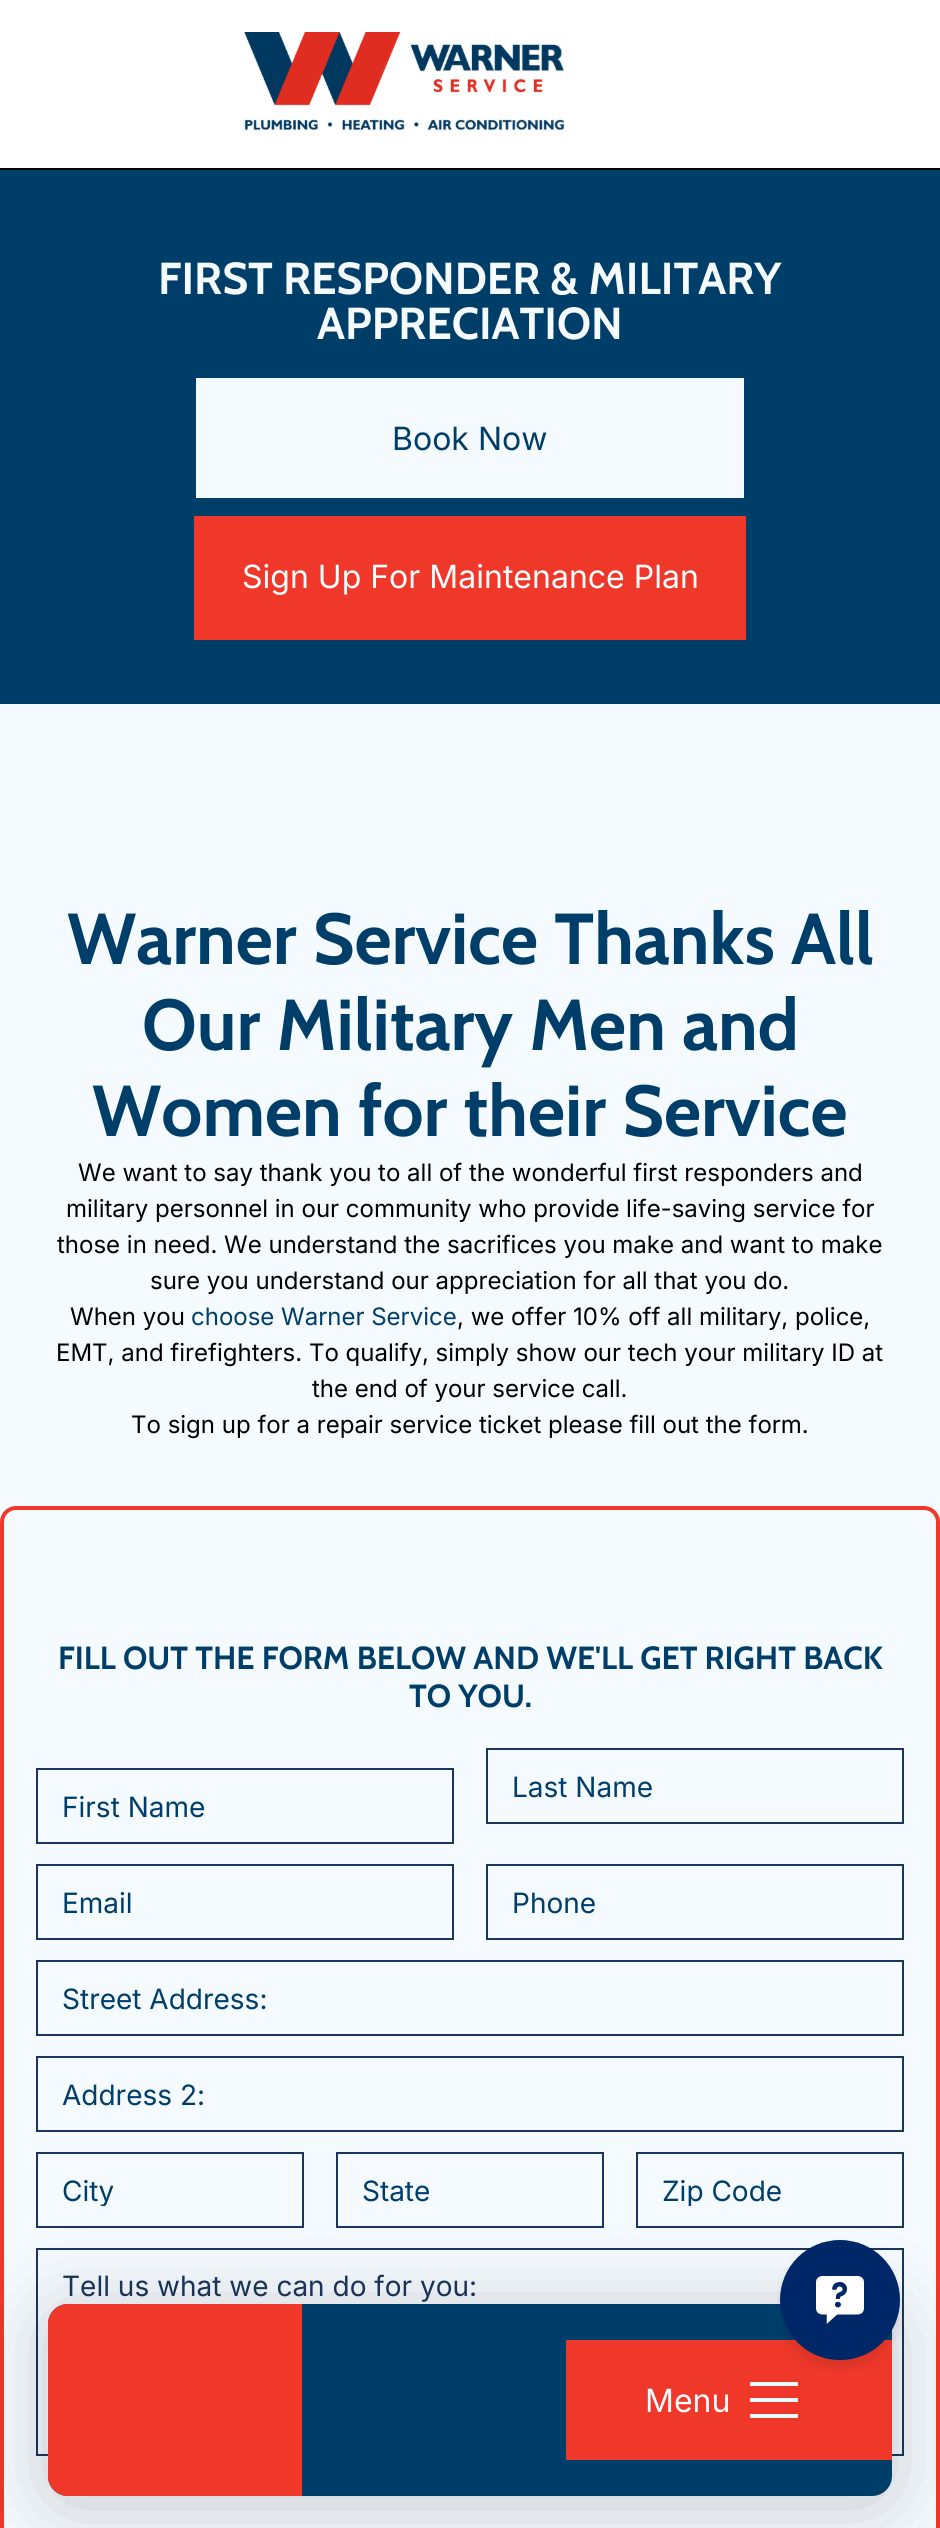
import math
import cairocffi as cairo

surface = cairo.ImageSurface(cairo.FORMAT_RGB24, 940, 2528)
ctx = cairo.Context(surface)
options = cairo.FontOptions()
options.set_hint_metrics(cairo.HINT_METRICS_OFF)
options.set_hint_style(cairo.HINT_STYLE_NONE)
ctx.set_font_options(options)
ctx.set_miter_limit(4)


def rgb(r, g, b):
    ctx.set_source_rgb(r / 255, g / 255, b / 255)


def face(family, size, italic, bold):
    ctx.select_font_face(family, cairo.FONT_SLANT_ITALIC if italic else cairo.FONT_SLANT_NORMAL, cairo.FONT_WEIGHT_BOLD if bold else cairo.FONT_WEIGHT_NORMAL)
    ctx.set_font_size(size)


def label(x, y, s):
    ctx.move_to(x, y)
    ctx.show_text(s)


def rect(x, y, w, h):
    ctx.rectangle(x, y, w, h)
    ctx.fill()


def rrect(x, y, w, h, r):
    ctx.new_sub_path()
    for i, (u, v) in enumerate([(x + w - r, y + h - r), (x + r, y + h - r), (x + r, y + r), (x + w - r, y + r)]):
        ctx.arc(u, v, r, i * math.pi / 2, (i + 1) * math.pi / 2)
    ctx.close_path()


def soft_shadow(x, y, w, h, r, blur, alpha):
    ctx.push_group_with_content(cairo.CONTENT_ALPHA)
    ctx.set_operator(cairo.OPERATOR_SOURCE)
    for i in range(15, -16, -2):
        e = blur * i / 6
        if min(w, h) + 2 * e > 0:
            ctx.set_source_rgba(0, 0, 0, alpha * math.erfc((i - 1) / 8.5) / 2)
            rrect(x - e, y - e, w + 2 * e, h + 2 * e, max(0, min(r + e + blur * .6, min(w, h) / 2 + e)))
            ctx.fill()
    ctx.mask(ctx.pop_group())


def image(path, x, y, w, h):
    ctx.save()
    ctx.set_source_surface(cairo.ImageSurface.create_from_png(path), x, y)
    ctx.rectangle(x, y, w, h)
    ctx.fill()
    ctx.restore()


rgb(245, 250, 255)
ctx.paint()
rgb(255, 255, 255)
rect(0, 0, 940, 168)
rgb(0, 0, 0)
rect(0, 168, 940, 2)
image('image0.png', 244, 32, 320, 99)
rgb(0, 62, 106)
rect(0, 170, 940, 534)
face('Cabin', 44.75, 0, 1)
rgb(245, 250, 255)
label(158, 294, 'FIRST RESPONDER & MILITARY')
label(317, 339, 'APPRECIATION')
rect(196, 378, 548, 120)
face('Inter', 32, 0, 0)
rgb(0, 62, 106)
label(392, 450, 'Book Now')
rgb(239, 56, 41)
rect(194, 516, 552, 124)
rgb(255, 255, 255)
label(242, 588, 'Sign Up For Maintenance Plan')
face('Cabin', 72, 0, 1)
rgb(0, 62, 106)
label(67, 964, 'Warner Service Thanks All')
label(142, 1050, 'Our Military Men and')
label(92, 1136, 'Women for their Service')
face('Inter', 24, 0, 0)
rgb(0, 0, 0)
label(78, 1181, 'We want to say thank you to all of the wonderful first responders and')
label(66, 1217, 'military personnel in our community who provide life-saving service for')
label(57, 1253, 'those in need. We understand the sacrifices you make and want to make')
label(150, 1289, 'sure you understand our appreciation for all that you do.')
label(70, 1325, 'When you')
rgb(0, 62, 106)
label(191, 1325, 'choose Warner Service')
rgb(0, 0, 0)
label(457, 1325, ', we offer 10% off all military, police,')
label(56, 1361, 'EMT, and firefighters. To qualify, simply show our tech your military ID at')
label(312, 1397, 'the end of your service call.')
label(131, 1433, 'To sign up for a repair service ticket please fill out the form.')
rrect(2, 1508, 936, 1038, 14)
rgb(239, 56, 41)
ctx.set_line_width(4)
ctx.stroke()
face('Cabin', 32, 0, 1)
rgb(0, 62, 106)
label(58, 1669, 'FILL OUT THE FORM BELOW AND WE\'LL GET RIGHT BACK')
label(409, 1707, 'TO YOU.')
ctx.rectangle(487, 1749, 416, 74)
rgb(27, 54, 93)
ctx.set_line_width(2)
ctx.stroke()
face('Inter', 28, 0, 0)
rgb(0, 62, 106)
label(512, 1797, 'Last Name')
ctx.rectangle(37, 1769, 416, 74)
rgb(27, 54, 93)
ctx.stroke()
rgb(0, 62, 106)
label(62, 1817, 'First Name')
ctx.rectangle(37, 1865, 416, 74)
rgb(27, 54, 93)
ctx.stroke()
rgb(0, 62, 106)
label(62, 1913, 'Email')
ctx.rectangle(487, 1865, 416, 74)
rgb(27, 54, 93)
ctx.stroke()
rgb(0, 62, 106)
label(512, 1913, 'Phone')
ctx.rectangle(37, 1961, 866, 74)
rgb(27, 54, 93)
ctx.stroke()
rgb(0, 62, 106)
label(62, 2009, 'Street Address:')
ctx.rectangle(37, 2057, 866, 74)
rgb(27, 54, 93)
ctx.stroke()
rgb(0, 62, 106)
label(62, 2105, 'Address 2:')
ctx.rectangle(37, 2153, 266, 74)
rgb(27, 54, 93)
ctx.stroke()
ctx.save()
ctx.rectangle(62, 2172, 216, 34)
ctx.clip()
rgb(0, 62, 106)
label(62, 2201, 'City')
ctx.restore()
ctx.rectangle(337, 2153, 266, 74)
ctx.stroke()
rgb(0, 62, 106)
label(362, 2201, 'State')
ctx.rectangle(637, 2153, 266, 74)
rgb(27, 54, 93)
ctx.stroke()
ctx.save()
ctx.rectangle(662, 2172, 186, 34)
ctx.clip()
rgb(0, 62, 106)
label(662, 2201, 'Zip Code')
ctx.restore()
ctx.rectangle(37, 2249, 866, 206)
ctx.stroke()
label(62, 2296, 'Tell us what we can do for you:')
rgb(0, 0, 0)
soft_shadow(48, 2312, 844, 192, 20, 40, 0.2)
rgb(0, 62, 106)
rrect(48, 2304, 844, 192, 20)
ctx.fill()
rgb(239, 56, 41)
ctx.new_path()
ctx.move_to(68, 2304)
ctx.line_to(302, 2304)
ctx.line_to(302, 2496)
ctx.line_to(68, 2496)
ctx.curve_to(57, 2496, 48, 2487, 48, 2476)
ctx.line_to(48, 2324)
ctx.curve_to(48, 2313, 57, 2304, 68, 2304)
ctx.close_path()
ctx.fill()
rect(566, 2340, 326, 120)
face('Inter', 32, 0, 0)
rgb(245, 250, 255)
label(645, 2412, 'Menu')
rect(750, 2382, 48, 4)
rect(750, 2398, 48, 4)
rect(750, 2414, 48, 4)
image('image1.png', 777, 2240, 125, 131)
surface.write_to_png('render.png')
